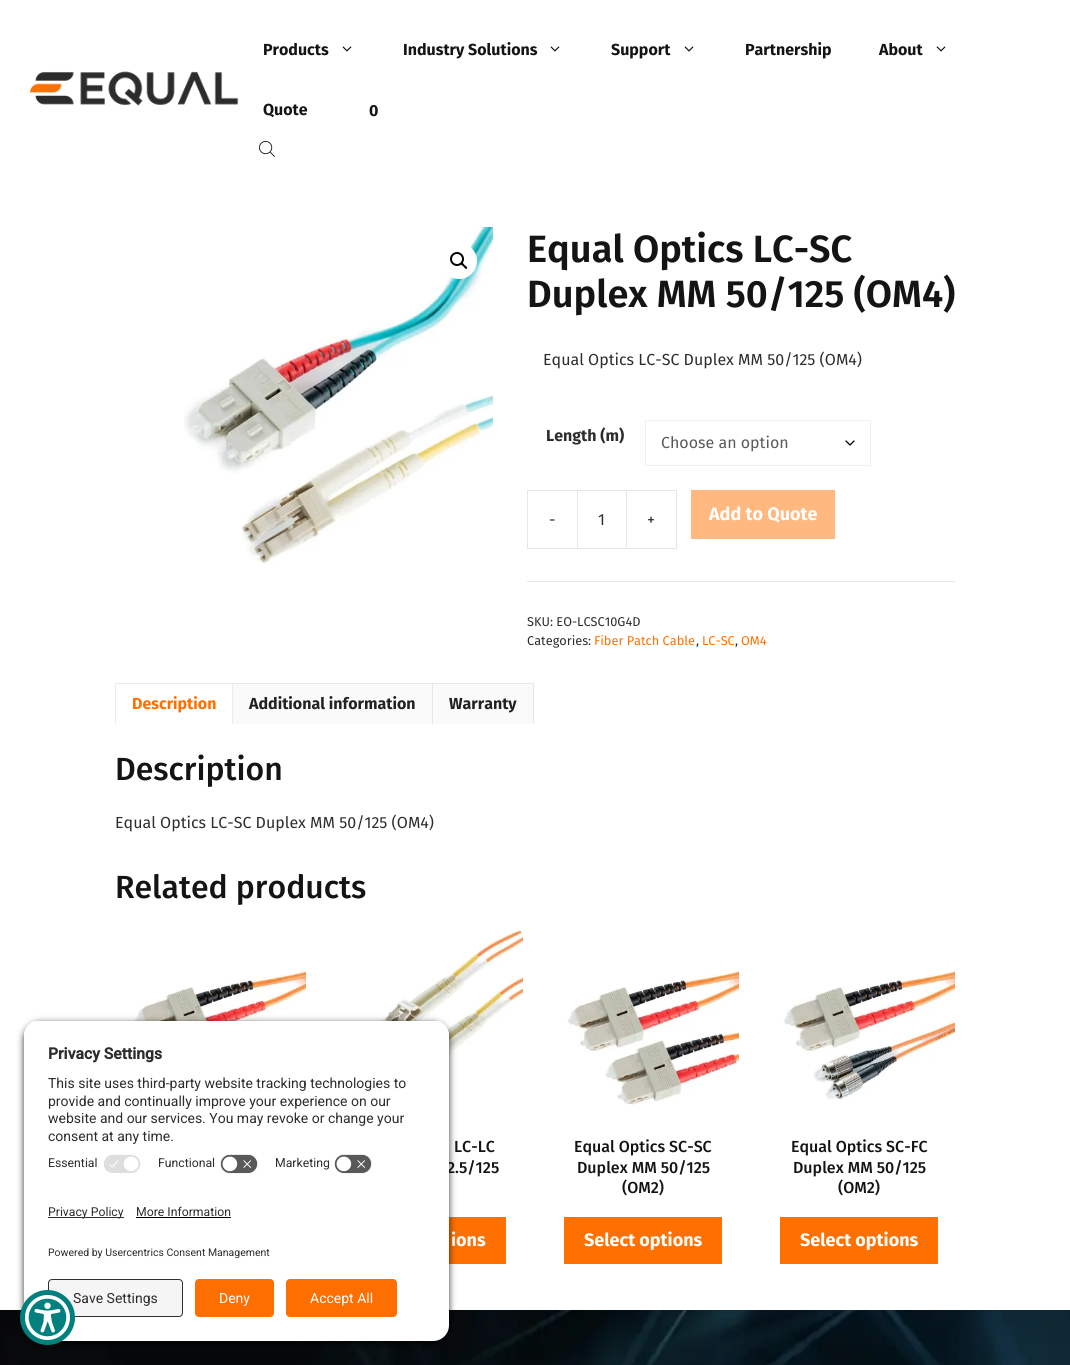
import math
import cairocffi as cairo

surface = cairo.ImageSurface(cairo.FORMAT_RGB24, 1070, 1365)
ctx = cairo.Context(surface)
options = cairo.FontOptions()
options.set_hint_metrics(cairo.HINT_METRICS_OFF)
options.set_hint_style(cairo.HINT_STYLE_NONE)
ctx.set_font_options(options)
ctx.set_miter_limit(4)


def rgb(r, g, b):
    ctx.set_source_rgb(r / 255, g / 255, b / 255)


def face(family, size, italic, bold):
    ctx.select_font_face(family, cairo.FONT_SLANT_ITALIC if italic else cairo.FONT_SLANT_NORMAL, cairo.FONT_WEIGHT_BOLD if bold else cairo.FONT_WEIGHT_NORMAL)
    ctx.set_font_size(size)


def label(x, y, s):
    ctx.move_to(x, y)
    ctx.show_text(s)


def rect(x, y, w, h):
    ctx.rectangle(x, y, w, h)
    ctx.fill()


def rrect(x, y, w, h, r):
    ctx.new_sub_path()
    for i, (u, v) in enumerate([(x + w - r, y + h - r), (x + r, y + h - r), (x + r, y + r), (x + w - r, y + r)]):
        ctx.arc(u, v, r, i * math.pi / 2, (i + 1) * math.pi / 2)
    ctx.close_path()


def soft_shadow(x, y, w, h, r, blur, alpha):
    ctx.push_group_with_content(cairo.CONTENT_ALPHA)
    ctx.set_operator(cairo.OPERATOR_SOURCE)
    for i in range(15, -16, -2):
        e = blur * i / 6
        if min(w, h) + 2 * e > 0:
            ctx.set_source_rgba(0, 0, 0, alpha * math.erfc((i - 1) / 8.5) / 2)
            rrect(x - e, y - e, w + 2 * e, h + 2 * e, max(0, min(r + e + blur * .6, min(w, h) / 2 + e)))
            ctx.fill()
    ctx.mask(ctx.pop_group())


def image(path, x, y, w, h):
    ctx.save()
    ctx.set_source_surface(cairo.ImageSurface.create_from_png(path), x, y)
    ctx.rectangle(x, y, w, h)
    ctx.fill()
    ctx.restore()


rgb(255, 255, 255)
ctx.paint()
image('image0.png', 30, 71, 209, 35)
face('Fira Sans', 16, 0, 1)
rgb(20, 20, 20)
label(263, 55, 'Products')
image('image1.png', 342, 46, 10, 6)
label(403, 55, 'Industry Solutions')
image('image1.png', 550, 46, 10, 6)
label(611, 55, 'Support')
image('image1.png', 684, 46, 10, 6)
label(745, 55, 'Partnership')
label(879, 55, 'About')
image('image1.png', 936, 46, 10, 6)
label(263, 115, 'Quote')
label(369, 116, '0')
image('image2.png', 259, 141, 16, 16)
image('image3.png', 184, 227, 309, 338)
rgb(255, 255, 255)
ctx.arc(459, 261, 18, 0, 2 * math.pi)
ctx.fill()
ctx.arc(457, 259, 6, 0, 2 * math.pi)
rgb(0, 0, 0)
ctx.stroke()
ctx.new_path()
ctx.move_to(461, 263)
ctx.curve_to(462.5, 261.5, 464, 264.5, 464.5, 265)
ctx.curve_to(465.5, 265.5, 468, 267.5, 467, 268.5)
ctx.curve_to(465.5, 270, 464, 267, 463.5, 266.5)
ctx.curve_to(462.5, 266, 460, 264, 461, 263)
ctx.close_path()
ctx.fill()
face('Fira Sans SemiBold', 38, 0, 0)
rgb(20, 20, 20)
label(527, 262, 'Equal Optics LC-SC')
label(527, 307, 'Duplex MM 50/125 (OM4)')
face('Fira Sans', 16, 0, 0)
rgb(45, 45, 45)
label(543, 365, 'Equal Optics LC-SC Duplex MM 50/125 (OM4)')
face('Fira Sans', 16, 0, 1)
label(546, 441, 'Length (m)')
ctx.new_path()
ctx.move_to(846, 441)
ctx.line_to(850, 445)
ctx.line_to(854, 441)
rgb(0, 0, 0)
ctx.set_line_width(1.3)
ctx.set_line_cap(cairo.LINE_CAP_ROUND)
ctx.set_line_join(cairo.LINE_JOIN_ROUND)
ctx.stroke()
ctx.rectangle(645.5, 420.5, 225, 45)
rgb(240, 240, 240)
ctx.set_line_width(1)
ctx.set_line_cap(cairo.LINE_CAP_BUTT)
ctx.set_line_join(cairo.LINE_JOIN_MITER)
ctx.stroke()
face('Fira Sans', 16, 0, 0)
rgb(89, 89, 89)
label(661, 448, 'Choose an option')
rgb(230, 230, 230)
ctx.new_path()
ctx.move_to(527, 490)
ctx.line_to(577, 490)
ctx.line_to(577, 491)
ctx.line_to(528, 491)
ctx.close_path()
ctx.move_to(577, 549)
ctx.line_to(527, 549)
ctx.line_to(528, 548)
ctx.line_to(577, 548)
ctx.close_path()
ctx.fill()
ctx.set_source_rgba(0, 0, 0, 0.1)
ctx.new_path()
ctx.move_to(527, 549)
ctx.line_to(527, 490)
ctx.line_to(528, 491)
ctx.line_to(528, 548)
ctx.close_path()
ctx.fill()
rgb(45, 45, 45)
label(549, 525, '-')
ctx.rectangle(577.5, 490.5, 49, 58)
rgb(230, 230, 230)
ctx.stroke()
rgb(45, 45, 45)
label(598, 525, '1')
rgb(230, 230, 230)
ctx.new_path()
ctx.move_to(627, 490)
ctx.line_to(677, 490)
ctx.line_to(676, 491)
ctx.line_to(627, 491)
ctx.close_path()
ctx.fill()
ctx.set_source_rgba(0, 0, 0, 0.1)
ctx.new_path()
ctx.move_to(677, 490)
ctx.line_to(677, 549)
ctx.line_to(676, 548)
ctx.line_to(676, 491)
ctx.close_path()
ctx.fill()
ctx.new_path()
ctx.move_to(677, 549)
ctx.line_to(627, 549)
ctx.line_to(627, 548)
ctx.line_to(676, 548)
ctx.close_path()
ctx.fill()
rgb(45, 45, 45)
label(647, 525, '+')
rgb(255, 184, 128)
rect(691, 490, 144, 49)
face('Fira Sans', 18, 0, 1)
rgb(255, 255, 255)
label(709, 520, 'Add to Quote')
rgb(230, 230, 230)
rect(527, 581, 428, 1)
face('Fira Sans', 12.75, 0, 0)
rgb(45, 45, 45)
label(527, 626, 'SKU: EO-LCSC10G4D')
label(527, 645, 'Categories:')
rgb(255, 112, 0)
label(594, 645, 'Fiber Patch Cable')
rgb(45, 45, 45)
label(696, 645, ',')
rgb(255, 112, 0)
label(702, 645, 'LC-SC')
rgb(45, 45, 45)
label(735, 645, ',')
rgb(255, 112, 0)
label(741, 645, 'OM4')
rgb(235, 235, 235)
ctx.new_path()
ctx.move_to(115, 683)
ctx.line_to(233, 683)
ctx.line_to(232, 684)
ctx.line_to(116, 684)
ctx.close_path()
ctx.fill()
ctx.set_source_rgba(0, 0, 0, 0.08)
ctx.new_path()
ctx.move_to(233, 683)
ctx.line_to(233, 724)
ctx.line_to(232, 724)
ctx.line_to(232, 684)
ctx.close_path()
ctx.fill()
ctx.new_path()
ctx.move_to(115, 724)
ctx.line_to(115, 683)
ctx.line_to(116, 684)
ctx.line_to(116, 724)
ctx.close_path()
ctx.fill()
face('Fira Sans', 16, 0, 1)
rgb(255, 112, 0)
label(132, 709, 'Description')
rgb(250, 250, 250)
rect(233, 683, 301, 41)
rgb(230, 230, 230)
ctx.new_path()
ctx.move_to(233, 683)
ctx.line_to(433, 683)
ctx.line_to(432, 684)
ctx.line_to(233, 684)
ctx.close_path()
ctx.fill()
ctx.set_source_rgba(0, 0, 0, 0.08)
ctx.new_path()
ctx.move_to(433, 683)
ctx.line_to(433, 724)
ctx.line_to(432, 724)
ctx.line_to(432, 684)
ctx.close_path()
ctx.fill()
rgb(34, 34, 34)
label(249, 709, 'Additional information')
rgb(230, 230, 230)
ctx.new_path()
ctx.move_to(433, 683)
ctx.line_to(534, 683)
ctx.line_to(533, 684)
ctx.line_to(433, 684)
ctx.close_path()
ctx.fill()
ctx.set_source_rgba(0, 0, 0, 0.08)
ctx.new_path()
ctx.move_to(534, 683)
ctx.line_to(534, 724)
ctx.line_to(533, 724)
ctx.line_to(533, 684)
ctx.close_path()
ctx.fill()
rgb(34, 34, 34)
label(449, 709, 'Warranty')
face('Fira Sans Medium', 32, 0, 0)
rgb(20, 20, 20)
label(115, 780, 'Description')
face('Fira Sans', 16, 0, 0)
rgb(45, 45, 45)
label(115, 828, 'Equal Optics LC-SC Duplex MM 50/125 (OM4)')
face('Fira Sans Medium', 32, 0, 0)
rgb(20, 20, 20)
label(115, 898, 'Related products')
image('image4.png', 134, 970, 172, 51)
image('image5.png', 373, 929, 150, 153)
face('Fira Sans Medium', 16, 0, 0)
label(454, 1152, 'LC-LC')
label(447, 1173, '2.5/125')
rgb(255, 112, 0)
rect(449, 1217, 57, 47)
face('Fira Sans', 18, 0, 1)
rgb(255, 255, 255)
label(451, 1246, 'ions')
image('image6.png', 567, 971, 172, 134)
face('Fira Sans Medium', 16, 0, 0)
rgb(20, 20, 20)
label(574, 1152, 'Equal Optics SC-SC')
label(577, 1173, 'Duplex MM 50/125')
label(622, 1193, '(OM2)')
rgb(255, 112, 0)
rect(564, 1217, 158, 47)
face('Fira Sans', 18, 0, 1)
rgb(255, 255, 255)
label(584, 1246, 'Select options')
image('image7.png', 783, 970, 172, 130)
face('Fira Sans Medium', 16, 0, 0)
rgb(20, 20, 20)
label(791, 1152, 'Equal Optics SC-FC')
label(793, 1173, 'Duplex MM 50/125')
label(838, 1193, '(OM2)')
rgb(255, 112, 0)
rect(780, 1217, 158, 47)
face('Fira Sans', 18, 0, 1)
rgb(255, 255, 255)
label(800, 1246, 'Select options')
image('image11.png', 0, 1310, 1070, 55)
rgb(0, 0, 0)
soft_shadow(24, 1023, 425, 321, 16, 3.5, 0.8)
ctx.save()
ctx.new_path()
ctx.move_to(40, 1020)
ctx.line_to(433, 1020)
ctx.curve_to(442, 1020, 449, 1027, 449, 1036)
ctx.line_to(449, 1189)
ctx.line_to(24, 1189)
ctx.line_to(24, 1036)
ctx.curve_to(24, 1027, 31, 1020, 40, 1020)
ctx.close_path()
ctx.clip()
rgb(255, 255, 255)
rect(24, 1021, 425, 168)
rect(24, 1021, 425, 128)
ctx.restore()
face('Roboto', 15.75, 0, 1)
rgb(45, 45, 45)
label(48, 1059, 'Privacy Settings')
face('Roboto', 14, 0, 0)
label(48, 1088, 'This site uses third-party website tracking technologies to')
label(48, 1106, 'provide and continually improve your experience on our')
label(48, 1123, 'website and our services. You may revoke or change your')
label(48, 1141, 'consent at any time.')
face('Roboto', 12.25, 0, 0)
label(48, 1167, 'Essential')
image('image8.png', 103, 1154, 38, 19)
label(158, 1167, 'Functional')
image('image9.png', 220, 1154, 38, 20)
label(275, 1167, 'Marketing')
image('image9.png', 334, 1154, 38, 20)
rgb(255, 255, 255)
ctx.new_path()
ctx.move_to(24, 1189)
ctx.line_to(449, 1189)
ctx.line_to(449, 1325)
ctx.curve_to(449, 1334, 442, 1341, 433, 1341)
ctx.line_to(40, 1341)
ctx.curve_to(31, 1341, 24, 1334, 24, 1325)
ctx.close_path()
ctx.fill()
rgb(48, 48, 48)
rect(48, 1217, 76, 1)
rgb(45, 45, 45)
label(48, 1216, 'Privacy Policy')
label(136, 1216, 'More Information')
rgb(0, 0, 0)
rect(136, 1217, 95, 1)
face('Roboto', 10.5, 0, 0)
rgb(45, 45, 45)
label(48, 1256, 'Powered by Usercentrics Consent Management')
rgb(245, 245, 245)
rrect(48.5, 1279.5, 134, 37, 3.5)
ctx.fill_preserve()
rgb(48, 48, 48)
ctx.stroke()
face('Roboto', 14, 0, 0)
rgb(45, 45, 45)
label(73, 1303, 'Save Settings')
rgb(255, 110, 0)
rrect(195, 1279, 79, 38, 4)
ctx.fill()
rgb(255, 255, 255)
label(219, 1303, 'Deny')
rgb(255, 110, 0)
rrect(286, 1279, 111, 38, 4)
ctx.fill()
rgb(255, 255, 255)
label(310, 1303, 'Accept All')
rgb(2, 128, 125)
ctx.new_path()
ctx.arc(47.5, 1317.5, 27.5, 0, 2 * math.pi)
ctx.fill()
image('image10.png', 25, 1295, 45, 45)
surface.write_to_png('render.png')
